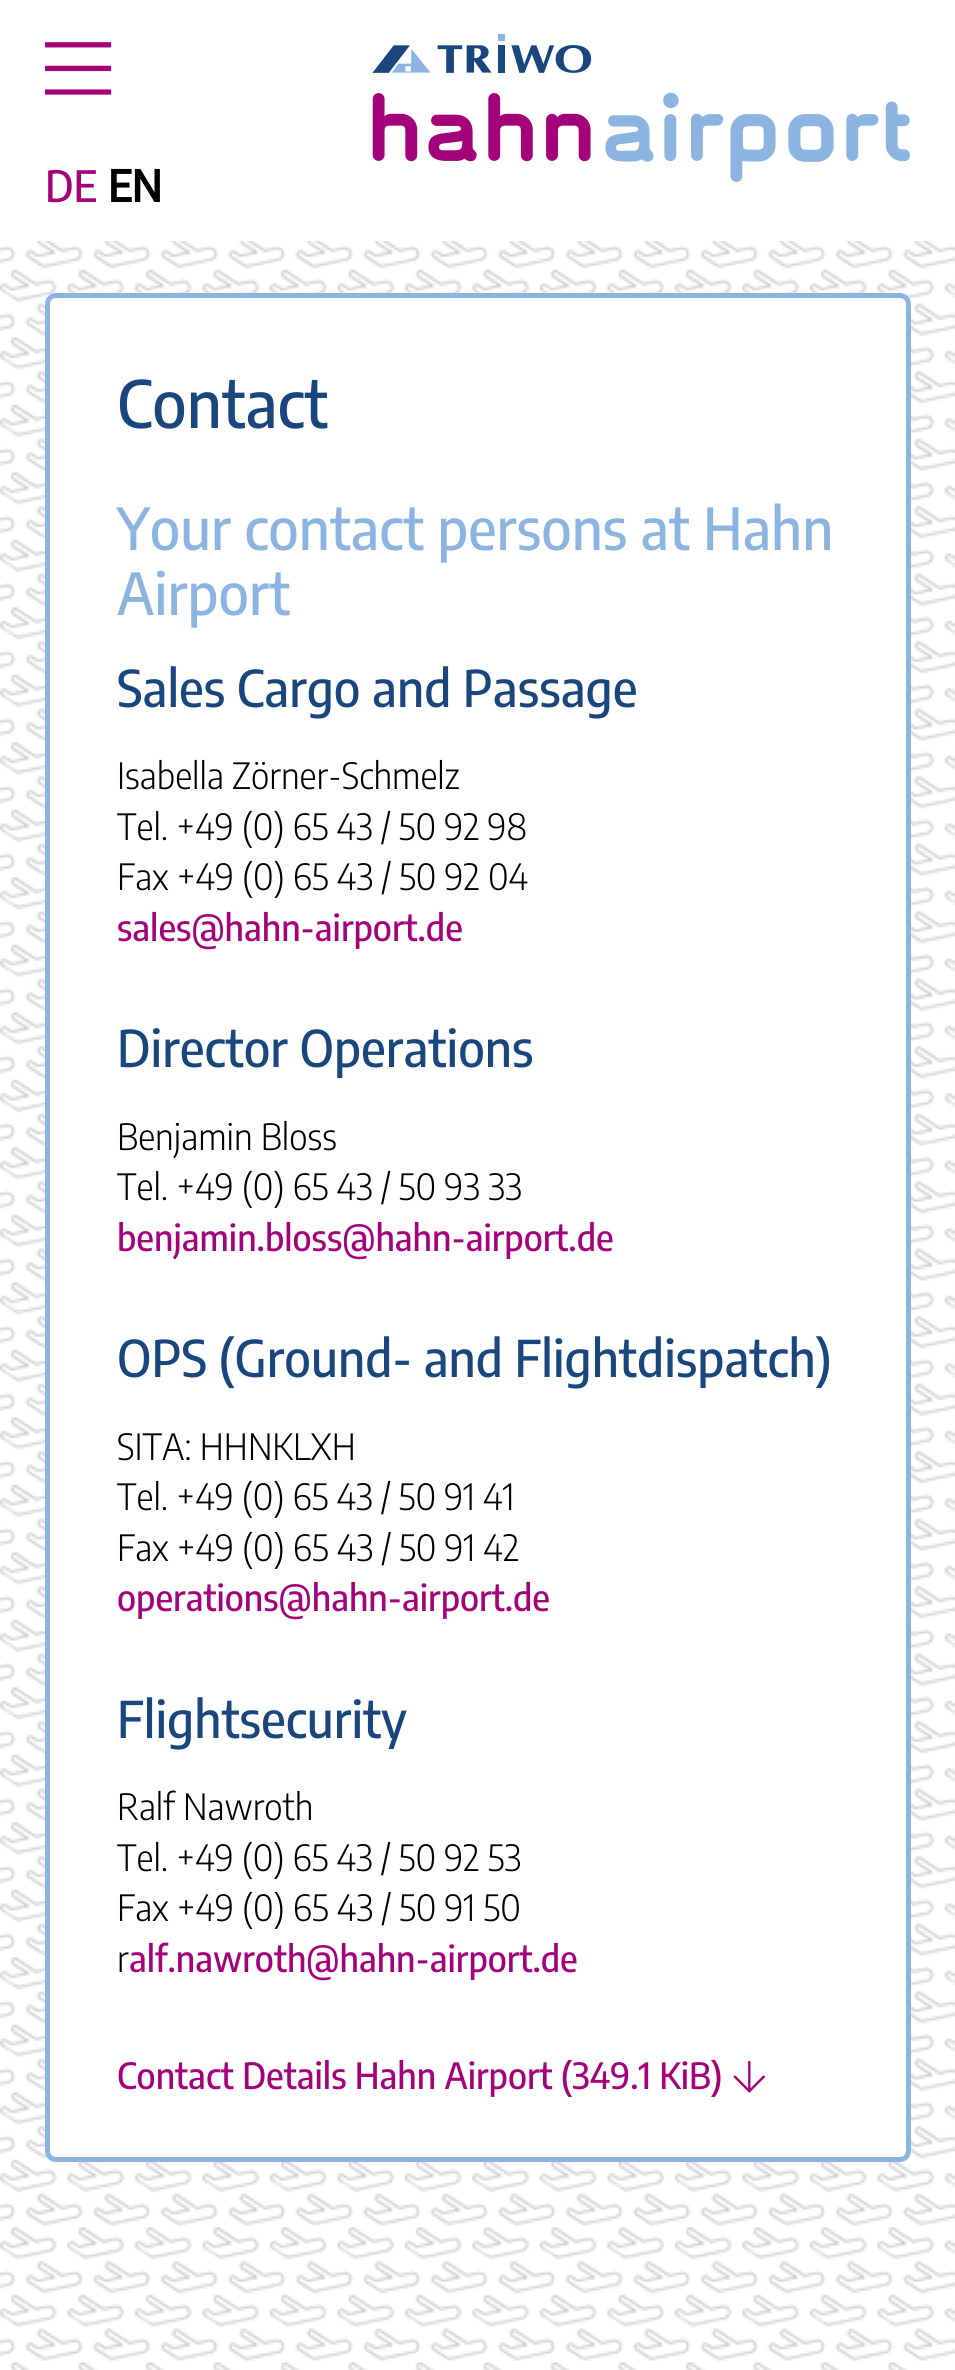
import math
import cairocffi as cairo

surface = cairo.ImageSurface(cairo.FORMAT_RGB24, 955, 2370)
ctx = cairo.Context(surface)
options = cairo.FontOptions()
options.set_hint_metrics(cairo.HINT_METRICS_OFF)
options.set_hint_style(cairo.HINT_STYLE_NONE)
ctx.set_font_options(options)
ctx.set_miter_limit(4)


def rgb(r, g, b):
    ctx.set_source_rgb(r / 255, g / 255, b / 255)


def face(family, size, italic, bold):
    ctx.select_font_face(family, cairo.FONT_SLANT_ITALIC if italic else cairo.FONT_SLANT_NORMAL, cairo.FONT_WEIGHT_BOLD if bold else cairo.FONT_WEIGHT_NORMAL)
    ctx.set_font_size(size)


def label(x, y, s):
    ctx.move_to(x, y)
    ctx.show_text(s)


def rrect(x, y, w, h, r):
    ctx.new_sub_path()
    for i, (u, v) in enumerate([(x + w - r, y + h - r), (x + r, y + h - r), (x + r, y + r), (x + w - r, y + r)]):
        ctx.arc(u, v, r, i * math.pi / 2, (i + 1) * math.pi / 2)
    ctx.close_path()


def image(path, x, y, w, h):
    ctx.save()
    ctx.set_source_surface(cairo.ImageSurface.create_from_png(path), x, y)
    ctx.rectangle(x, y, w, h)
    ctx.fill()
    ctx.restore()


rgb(255, 255, 255)
ctx.paint()
image('image0.png', 0, 241, 955, 2129)
image('image1.png', 45, 42, 67, 53)
image('image2.png', 372, 34, 539, 148)
face('Encode Sans Semi Condensed Medium', 43, 0, 0)
rgb(163, 2, 123)
label(45, 202, 'DE')
face('Encode Sans Semi Condensed', 43, 0, 1)
rgb(0, 0, 0)
label(108, 202, 'EN')
rgb(255, 255, 255)
rrect(47.5, 295.5, 861, 1864, 8.5)
ctx.fill_preserve()
rgb(140, 180, 225)
ctx.set_line_width(5)
ctx.stroke()
face('Encode Sans Semi Condensed Medium', 65, 0, 0)
rgb(25, 70, 125)
label(117, 428, 'Contact')
face('Encode Sans Semi Condensed Medium', 57.6, 0, 0)
rgb(140, 180, 225)
label(117, 550, 'Your contact persons at Hahn')
label(117, 615, 'Airport')
face('Encode Sans Semi Condensed Medium', 50.4, 0, 0)
rgb(25, 70, 125)
label(117, 707, 'Sales Cargo and Passage')
face('Encode Sans Semi Condensed Light', 36, 0, 0)
rgb(0, 0, 0)
label(117, 789, 'Isabella Zörner-Schmelz')
label(117, 840, 'Tel. +49 (0) 65 43 / 50 92 98')
label(117, 890, 'Fax +49 (0) 65 43 / 50 92 04')
face('Encode Sans Semi Condensed Medium', 36, 0, 0)
rgb(163, 2, 123)
label(117, 941, 'sales@hahn-airport.de')
face('Encode Sans Semi Condensed Medium', 50.4, 0, 0)
rgb(25, 70, 125)
label(117, 1067, 'Director Operations')
face('Encode Sans Semi Condensed Light', 36, 0, 0)
rgb(0, 0, 0)
label(117, 1150, 'Benjamin Bloss')
label(117, 1200, 'Tel. +49 (0) 65 43 / 50 93 33')
face('Encode Sans Semi Condensed Medium', 36, 0, 0)
rgb(163, 2, 123)
label(117, 1251, 'benjamin.bloss@hahn-airport.de')
face('Encode Sans Semi Condensed Medium', 50.4, 0, 0)
rgb(25, 70, 125)
label(117, 1377, 'OPS (Ground- and Flightdispatch)')
face('Encode Sans Semi Condensed Light', 36, 0, 0)
rgb(0, 0, 0)
label(117, 1460, 'SITA: HHNKLXH')
label(117, 1510, 'Tel. +49 (0) 65 43 / 50 91 41')
label(117, 1561, 'Fax +49 (0) 65 43 / 50 91 42')
face('Encode Sans Semi Condensed Medium', 36, 0, 0)
rgb(163, 2, 123)
label(117, 1611, 'operations@hahn-airport.de')
face('Encode Sans Semi Condensed Medium', 50.4, 0, 0)
rgb(25, 70, 125)
label(117, 1738, 'Flightsecurity')
face('Encode Sans Semi Condensed Light', 36, 0, 0)
rgb(0, 0, 0)
label(117, 1820, 'Ralf Nawroth')
label(117, 1871, 'Tel. +49 (0) 65 43 / 50 92 53')
label(117, 1921, 'Fax +49 (0) 65 43 / 50 91 50')
label(117, 1972, 'r')
face('Encode Sans Semi Condensed Medium', 36, 0, 0)
rgb(163, 2, 123)
label(129, 1972, 'alf.nawroth@hahn-airport.de')
label(117, 2089, 'Contact Details Hahn Airport (349.1 KiB)')
image('image3.png', 733, 2061, 32, 32)
surface.write_to_png('render.png')
